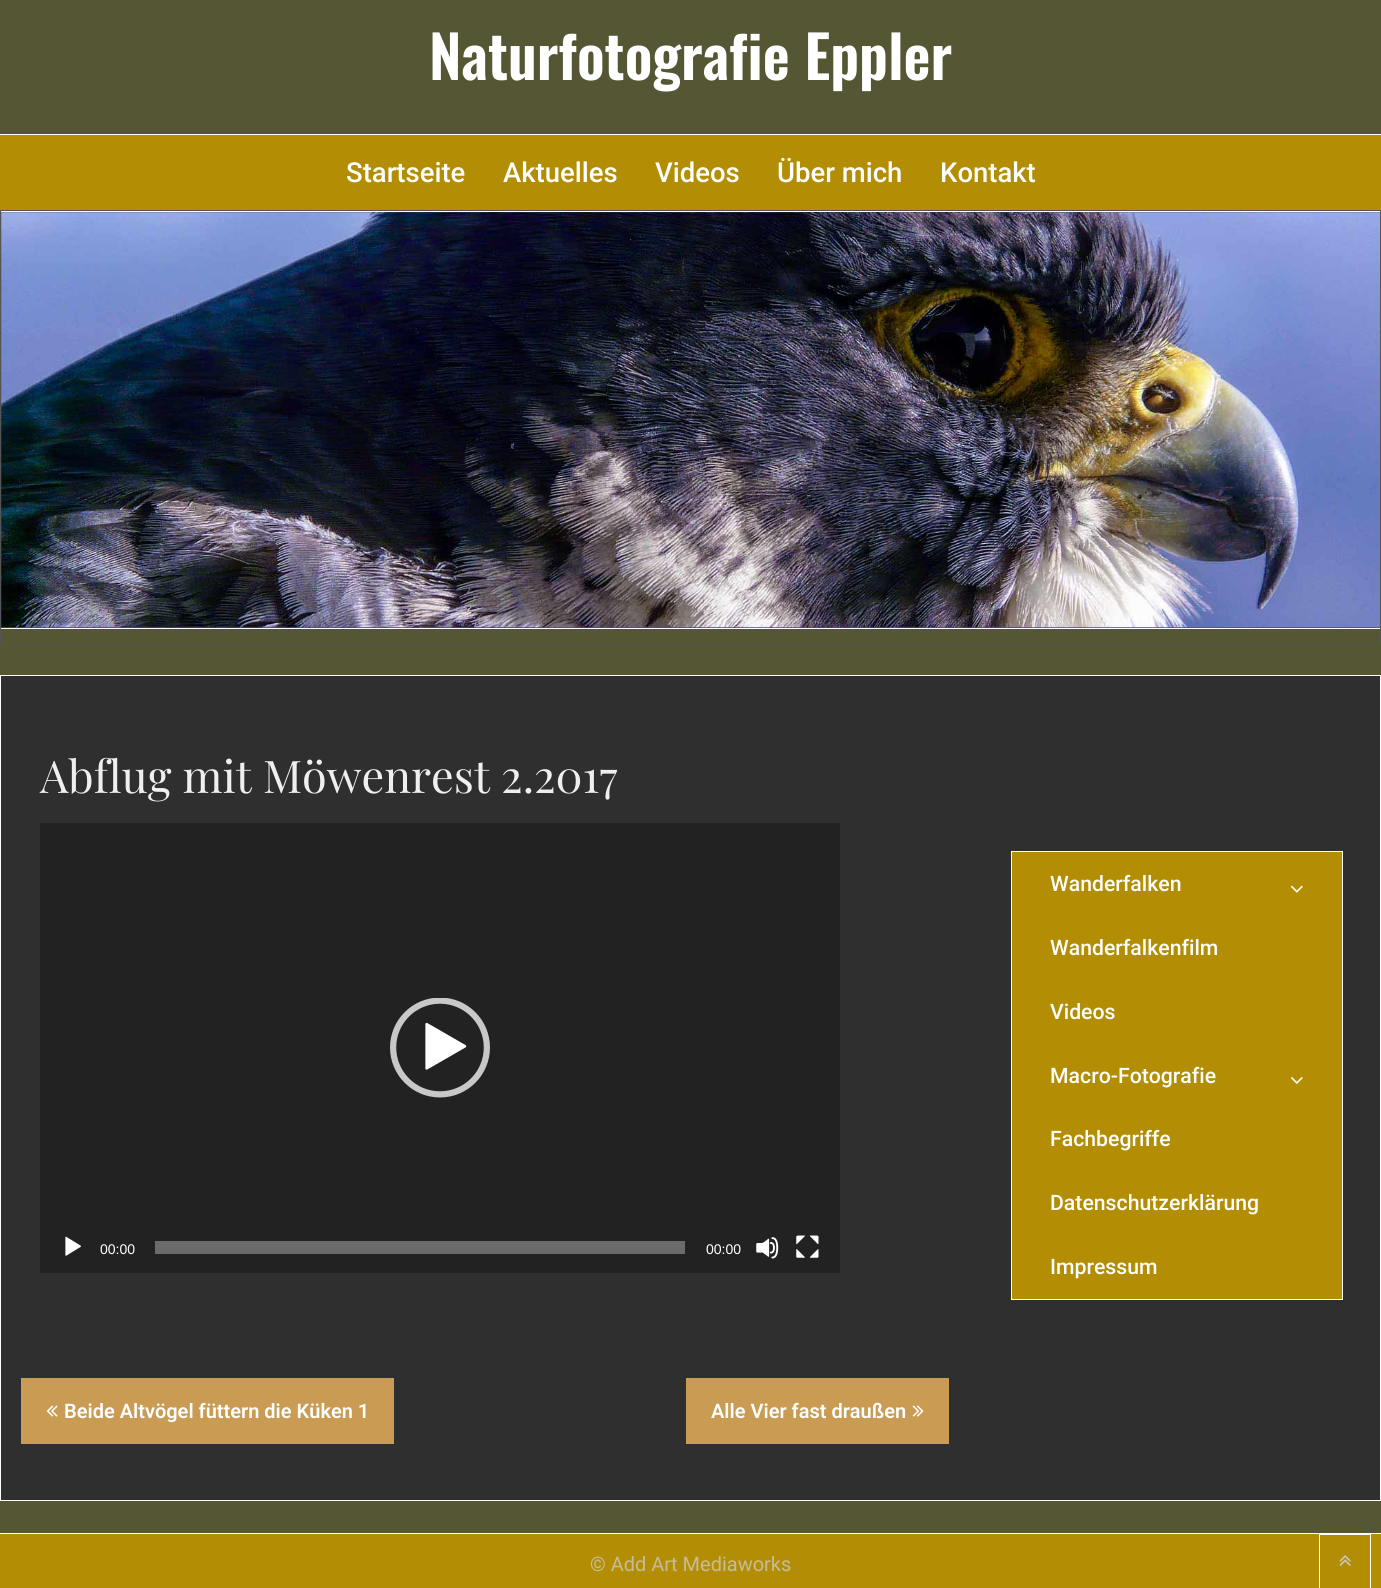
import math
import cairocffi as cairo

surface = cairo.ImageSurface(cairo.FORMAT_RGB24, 1381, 1588)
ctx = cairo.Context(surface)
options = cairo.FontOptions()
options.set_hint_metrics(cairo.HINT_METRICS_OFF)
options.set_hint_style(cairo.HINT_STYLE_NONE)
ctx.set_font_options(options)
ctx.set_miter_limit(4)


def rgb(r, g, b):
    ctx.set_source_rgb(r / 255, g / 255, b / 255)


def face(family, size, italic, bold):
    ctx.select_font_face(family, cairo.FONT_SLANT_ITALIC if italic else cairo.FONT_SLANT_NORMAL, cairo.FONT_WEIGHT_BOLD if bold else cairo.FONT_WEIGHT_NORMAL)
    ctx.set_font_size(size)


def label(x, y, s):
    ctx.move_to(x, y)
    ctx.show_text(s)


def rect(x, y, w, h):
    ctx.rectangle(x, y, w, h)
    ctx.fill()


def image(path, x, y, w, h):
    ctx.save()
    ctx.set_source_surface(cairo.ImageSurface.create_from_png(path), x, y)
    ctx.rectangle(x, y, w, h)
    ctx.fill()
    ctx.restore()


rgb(85, 86, 51)
ctx.paint()
rgb(255, 255, 255)
rect(0, 134, 1381, 1)
face('Oswald SemiBold', 58.75, 0, 0)
label(429, 80, 'Naturfotografie Eppler')
rgb(179, 141, 3)
rect(0, 135, 1381, 75)
face('Roboto Medium', 27.5, 0, 0)
rgb(255, 255, 255)
label(346, 182, 'Startseite')
label(503, 182, 'Aktuelles')
label(655, 182, 'Videos')
label(777, 182, 'Über mich')
label(940, 182, 'Kontakt')
ctx.rectangle(0.5, 210.5, 1380, 433)
rgb(85, 85, 85)
ctx.set_line_width(1)
ctx.stroke()
rgb(255, 255, 255)
rect(1, 211, 1379, 1)
image('image0.png', 1, 212, 1379, 416)
rect(1, 628, 1379, 1)
rgb(47, 47, 47)
ctx.rectangle(0.5, 675.5, 1380, 825)
ctx.fill_preserve()
rgb(255, 255, 255)
ctx.stroke()
face('Playfair Display', 45, 0, 0)
rgb(239, 239, 239)
label(40, 793, 'Abflug mit Möwenrest 2.2017')
rgb(34, 34, 34)
rect(40, 823, 800, 450)
image('image1.png', 390, 998, 100, 100)
image('image2.png', 65, 1236, 16, 20)
face('Liberation Sans', 14, 0, 0)
rgb(255, 255, 255)
label(100, 1254, '00:00')
rgb(107, 107, 107)
rect(155, 1241, 530, 13)
rgb(255, 255, 255)
label(706, 1254, '00:00')
image('image3.png', 756, 1237, 23, 22)
image('image4.png', 796, 1235, 23, 23)
rgb(202, 155, 82)
rect(21, 1378, 373, 66)
image('image5.png', 46, 1405, 12, 12)
face('Roboto SemiBold', 20, 0, 0)
rgb(255, 255, 255)
label(64, 1418, 'Beide Altvögel füttern die Küken 1')
rgb(202, 155, 82)
rect(686, 1378, 263, 66)
rgb(255, 255, 255)
label(711, 1418, 'Alle Vier fast draußen')
image('image6.png', 912, 1405, 12, 12)
rgb(179, 141, 3)
ctx.rectangle(1011.5, 851.5, 331, 448)
ctx.fill_preserve()
rgb(255, 255, 255)
ctx.stroke()
face('Roboto Medium', 21.25, 0, 0)
label(1050, 891, 'Wanderfalken')
image('image7.png', 1291, 885, 12, 8)
label(1050, 955, 'Wanderfalkenfilm')
label(1050, 1019, 'Videos')
label(1050, 1083, 'Macro-Fotografie')
image('image8.png', 1291, 1077, 12, 7)
label(1050, 1146, 'Fachbegriffe')
label(1050, 1210, 'Datenschutzerklärung')
label(1050, 1274, 'Impressum')
rgb(179, 141, 3)
rect(0, 1534, 1381, 54)
rgb(255, 255, 255)
rect(0, 1533, 1381, 1)
face('Roboto', 20, 0, 0)
rgb(198, 188, 154)
label(590, 1571, '© Add Art Mediaworks')
ctx.rectangle(1319.5, 1534.5, 51, 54)
rgb(253, 252, 248)
ctx.stroke()
image('image9.png', 1339, 1555, 12, 11)
surface.write_to_png('render.png')
